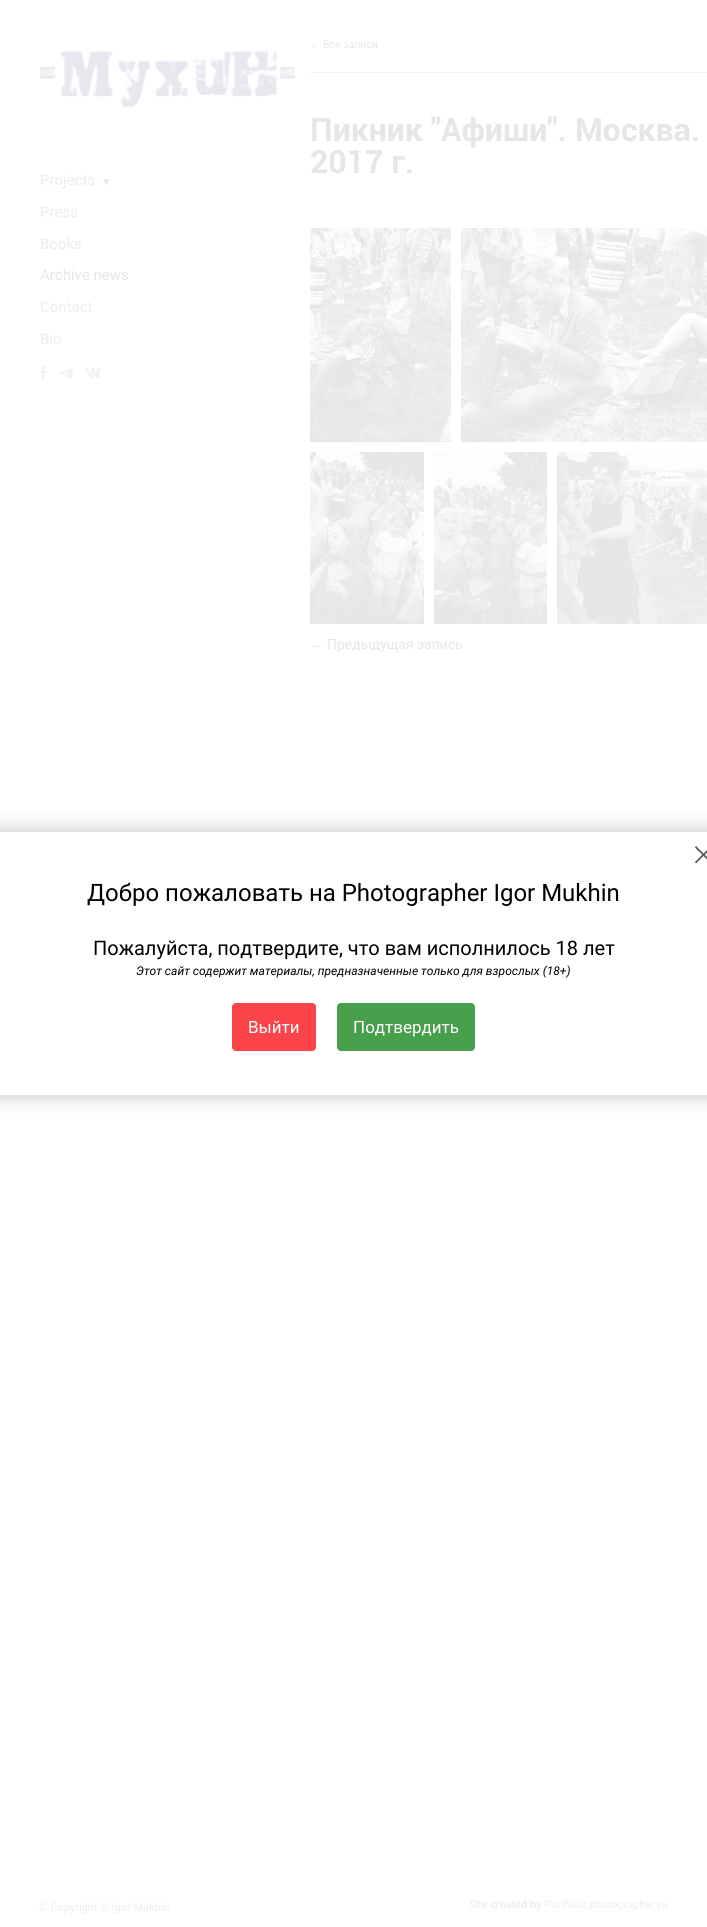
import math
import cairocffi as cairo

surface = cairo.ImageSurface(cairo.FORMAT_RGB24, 707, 1927)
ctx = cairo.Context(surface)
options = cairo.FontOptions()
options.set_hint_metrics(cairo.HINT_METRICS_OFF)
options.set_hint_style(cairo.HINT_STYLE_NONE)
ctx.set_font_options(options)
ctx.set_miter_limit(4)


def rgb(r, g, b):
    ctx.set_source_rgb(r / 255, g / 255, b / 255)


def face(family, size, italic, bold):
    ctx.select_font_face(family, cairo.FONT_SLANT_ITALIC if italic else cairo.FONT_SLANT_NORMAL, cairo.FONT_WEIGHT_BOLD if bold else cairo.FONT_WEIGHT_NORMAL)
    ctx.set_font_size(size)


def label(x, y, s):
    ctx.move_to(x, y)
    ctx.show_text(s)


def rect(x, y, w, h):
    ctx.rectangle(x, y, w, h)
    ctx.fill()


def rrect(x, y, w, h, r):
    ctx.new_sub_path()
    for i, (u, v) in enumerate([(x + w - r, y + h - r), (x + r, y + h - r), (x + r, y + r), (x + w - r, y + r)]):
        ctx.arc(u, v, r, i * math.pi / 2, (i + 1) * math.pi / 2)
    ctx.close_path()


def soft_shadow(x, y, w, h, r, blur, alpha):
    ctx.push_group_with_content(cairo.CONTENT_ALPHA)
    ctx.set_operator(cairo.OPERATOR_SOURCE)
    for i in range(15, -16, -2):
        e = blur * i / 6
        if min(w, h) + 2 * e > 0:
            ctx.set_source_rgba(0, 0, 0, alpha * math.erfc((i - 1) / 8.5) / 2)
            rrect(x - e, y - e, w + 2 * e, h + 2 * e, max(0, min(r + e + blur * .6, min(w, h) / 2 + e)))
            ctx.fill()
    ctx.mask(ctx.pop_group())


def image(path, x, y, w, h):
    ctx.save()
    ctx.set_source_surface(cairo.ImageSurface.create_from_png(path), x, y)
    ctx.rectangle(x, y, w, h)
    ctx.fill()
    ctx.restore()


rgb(255, 255, 255)
ctx.paint()
image('image0.png', 40, 51, 255, 56)
face('Roboto', 15, 0, 0)
rgb(237, 237, 237)
label(40, 185, 'Projects')
face('Liberation Serif', 10.5, 0, 0)
rgb(230, 230, 230)
label(101, 185, '▼')
face('Roboto', 15, 0, 0)
rgb(237, 237, 237)
label(40, 217, 'Press')
label(40, 249, 'Books')
rgb(230, 230, 230)
label(40, 280, 'Аrchive news')
rgb(237, 237, 237)
label(40, 312, 'Contact')
label(40, 344, 'Bio')
image('image1.png', 40, 366, 7, 14)
image('image2.png', 59, 368, 14, 11)
image('image3.png', 85, 368, 16, 10)
rgb(243, 243, 243)
rect(310, 72, 397, 1)
face('Liberation Serif', 10.5, 0, 0)
rgb(230, 230, 230)
label(310, 48, '←')
face('Roboto', 10.5, 0, 0)
label(323, 48, 'Все записи')
face('Roboto', 32, 0, 1)
label(310, 141, 'Пикник "Афиши". Москва.')
label(310, 173, '2017 г.')
image('image4.png', 310, 228, 141, 214)
image('image5.png', 461, 228, 246, 214)
image('image6.png', 310, 452, 114, 172)
image('image7.png', 434, 452, 113, 172)
image('image8.png', 557, 452, 150, 172)
face('Liberation Serif', 14, 0, 0)
label(310, 649, '←')
face('Roboto', 14, 0, 0)
label(327, 649, 'Предыдущая запись')
rgb(0, 0, 0)
soft_shadow(-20, 832, 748, 263, 0, 10, 0.25)
rgb(255, 255, 255)
rect(0, 832, 707, 263)
rgb(93, 86, 81)
ctx.new_path()
ctx.move_to(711, 846)
ctx.line_to(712, 847.5)
ctx.line_to(696, 863.5)
ctx.line_to(695, 862)
ctx.close_path()
ctx.fill()
ctx.new_path()
ctx.move_to(695, 847.5)
ctx.line_to(696, 846)
ctx.line_to(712, 862)
ctx.line_to(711, 863.5)
ctx.close_path()
ctx.fill()
face('Roboto', 24, 0, 0)
rgb(0, 0, 0)
label(87, 901, 'Добро пожаловать на Photographer Igor Mukhin')
face('Roboto', 20, 0, 0)
label(93, 955, 'Пожалуйста, подтвердите, что вам исполнилось 18 лет')
face('Roboto', 12, 1, 0)
label(136, 975, 'Этот сайт содержит материалы, предназначенные только для взрослых (18+)')
rgb(251, 68, 74)
rrect(232, 1003, 84, 48, 4)
ctx.fill()
face('Roboto', 17, 0, 0)
rgb(255, 255, 255)
label(248, 1033, 'Выйти')
rgb(71, 159, 75)
rrect(337, 1003, 138, 48, 4)
ctx.fill()
rgb(255, 255, 255)
label(353, 1033, 'Подтвердить')
face('Roboto', 11, 0, 0)
rgb(237, 237, 237)
label(39, 1911, '© Copyright © Igor Mukhin')
rgb(230, 230, 230)
label(469, 1908, 'Site created by')
rgb(237, 237, 237)
label(544, 1908, 'Portfolio.photographer.ru')
surface.write_to_png('render.png')
